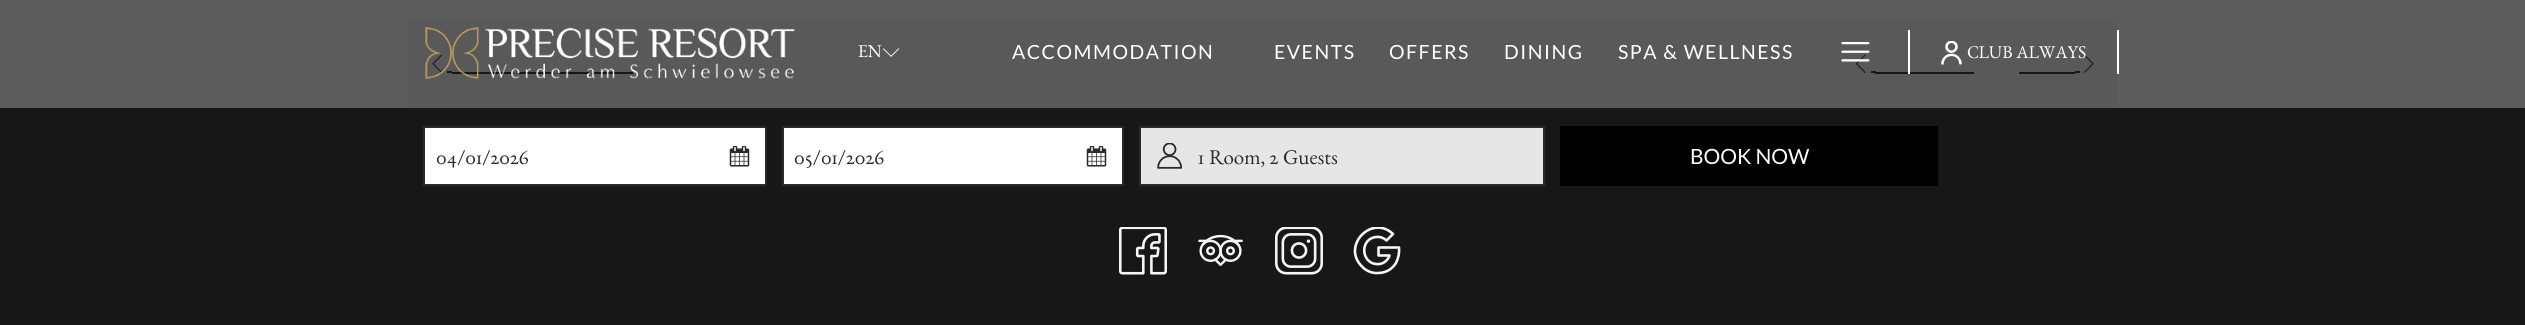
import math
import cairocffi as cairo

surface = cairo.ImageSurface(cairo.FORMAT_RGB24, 2525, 325)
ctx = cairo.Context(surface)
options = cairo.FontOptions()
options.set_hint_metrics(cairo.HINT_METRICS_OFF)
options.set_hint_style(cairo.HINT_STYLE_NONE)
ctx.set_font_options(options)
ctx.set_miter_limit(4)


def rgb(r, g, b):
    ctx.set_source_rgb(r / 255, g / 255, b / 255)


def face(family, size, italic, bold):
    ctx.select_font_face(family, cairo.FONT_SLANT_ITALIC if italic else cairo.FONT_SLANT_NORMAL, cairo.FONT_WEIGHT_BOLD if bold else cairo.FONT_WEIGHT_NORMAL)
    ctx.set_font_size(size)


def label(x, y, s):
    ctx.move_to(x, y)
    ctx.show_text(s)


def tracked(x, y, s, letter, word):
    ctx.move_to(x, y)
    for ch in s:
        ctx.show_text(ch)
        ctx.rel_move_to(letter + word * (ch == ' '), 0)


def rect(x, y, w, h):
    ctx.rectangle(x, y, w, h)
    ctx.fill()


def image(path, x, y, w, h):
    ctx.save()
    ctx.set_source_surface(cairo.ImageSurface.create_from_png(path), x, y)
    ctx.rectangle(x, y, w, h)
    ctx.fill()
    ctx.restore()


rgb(255, 255, 255)
ctx.paint()
rgb(245, 245, 245)
rect(408, 18, 1710, 90)
image('image0.png', 432, 54, 10, 19)
rgb(23, 23, 23)
rect(447, 71, 5, 2)
rect(452, 72, 181, 2)
image('image1.png', 1855, 54, 11, 19)
rect(1871, 71, 5, 2)
rect(1875, 72, 99, 2)
rect(2019, 72, 56, 2)
rect(2075, 71, 5, 2)
image('image2.png', 2084, 54, 10, 19)
ctx.set_source_rgba(0.09, 0.09, 0.09, 0.7)
rect(0, 0, 2525, 108)
image('image3.png', 425, 27, 370, 52)
face('EB Garamond', 18, 0, 0)
rgb(255, 255, 255)
label(858, 57, 'EN')
image('image4.png', 883, 48, 16, 9)
face('Lato', 19.5, 0, 0)
tracked(1012, 59, 'ACCOMMODATION', 1.5, 0)
tracked(1274, 59, 'EVENTS', 1.5, 0)
tracked(1389, 59, 'OFFERS', 1.5, 0)
tracked(1504, 59, 'DINING', 1.5, 0)
tracked(1618, 59, 'SPA & WELLNESS', 1.5, 0)
image('image5.png', 1841, 42, 29, 20)
rect(2117, 30, 2, 44)
rect(1908, 30, 2, 44)
image('image6.png', 1941, 41, 21, 24)
face('EB Garamond', 18, 0, 0)
label(1967, 58, 'CLUB ALWAYS')
rgb(23, 23, 23)
rect(0, 108, 2525, 217)
rgb(255, 255, 255)
ctx.rectangle(424, 127, 342, 58)
ctx.fill_preserve()
rgb(42, 42, 42)
ctx.stroke()
ctx.save()
ctx.rectangle(437, 143, 276, 27)
ctx.clip()
face('EB Garamond', 21, 0, 0)
label(436, 164, '04/01/2026')
ctx.restore()
image('image7.png', 729, 146, 21, 21)
rgb(255, 255, 255)
ctx.rectangle(783, 127, 340, 58)
ctx.fill_preserve()
rgb(42, 42, 42)
ctx.stroke()
face('EB Garamond', 21, 0, 0)
label(794, 164, '05/01/2026')
image('image7.png', 1086, 146, 21, 21)
rgb(230, 230, 230)
ctx.rectangle(1140, 127, 404, 58)
ctx.fill_preserve()
rgb(42, 42, 42)
ctx.stroke()
image('image8.png', 1157, 143, 25, 26)
label(1198, 164, '1')
label(1209, 164, 'Room, 2')
label(1283, 164, 'Guests')
rgb(0, 0, 0)
rect(1560, 126, 378, 60)
face('Lato', 21, 0, 0)
rgb(255, 255, 255)
label(1690, 164, 'BOOK NOW')
image('image9.png', 1119, 227, 48, 48)
image('image10.png', 1198, 234, 45, 32)
image('image11.png', 1275, 227, 48, 48)
ctx.save()
ctx.rectangle(1353, 227, 48, 48)
ctx.clip()
ctx.new_path()
ctx.move_to(1389.5, 255.5)
ctx.curve_to(1388, 260, 1384, 263.5, 1379.5, 264)
ctx.curve_to(1361, 266, 1358.5, 238.5, 1376.5, 237)
ctx.curve_to(1380, 236.5, 1384, 238, 1386.5, 240.5)
ctx.line_to(1393, 234)
ctx.curve_to(1372, 214, 1341.5, 245.5, 1361.5, 266)
ctx.curve_to(1365.5, 270.5, 1371.5, 273.5, 1378, 273)
ctx.curve_to(1385.5, 273, 1392, 269.5, 1396, 263)
ctx.curve_to(1398.5, 258, 1399.5, 252.5, 1399, 247.5)
ctx.line_to(1378.5, 247.5)
ctx.line_to(1378.5, 255.5)
ctx.line_to(1389.5, 255.5)
rgb(245, 245, 245)
ctx.set_line_width(2.6)
ctx.set_line_cap(cairo.LINE_CAP_ROUND)
ctx.set_line_join(cairo.LINE_JOIN_ROUND)
ctx.stroke()
ctx.restore()
surface.write_to_png('render.png')
